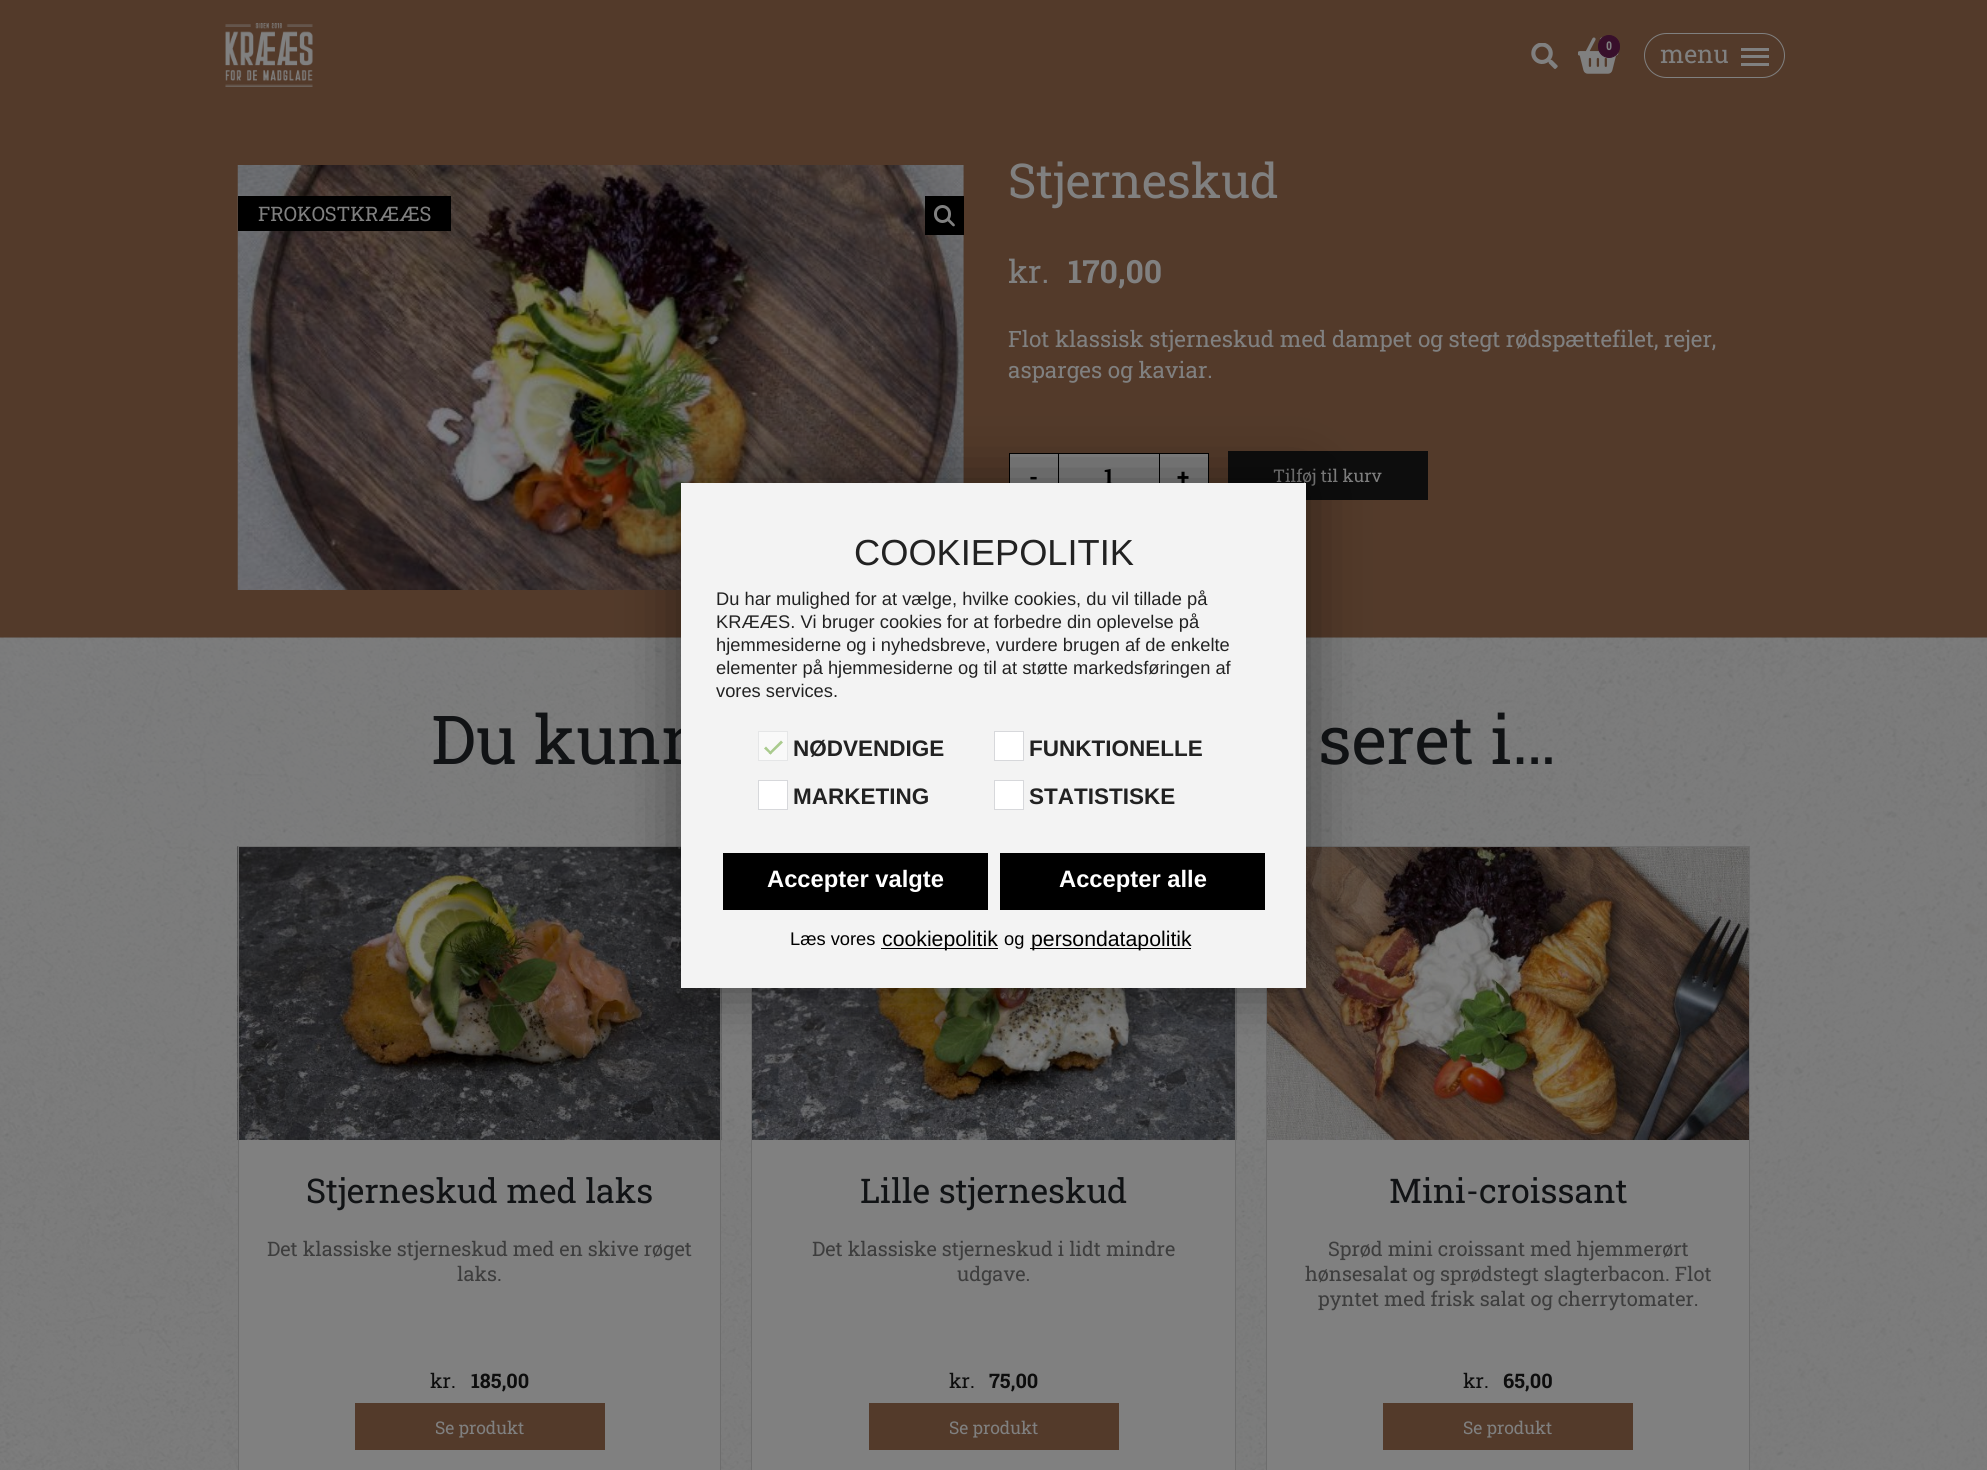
import math
import cairocffi as cairo

surface = cairo.ImageSurface(cairo.FORMAT_RGB24, 1987, 1470)
ctx = cairo.Context(surface)
options = cairo.FontOptions()
options.set_hint_metrics(cairo.HINT_METRICS_OFF)
options.set_hint_style(cairo.HINT_STYLE_NONE)
ctx.set_font_options(options)
ctx.set_miter_limit(4)


def rgb(r, g, b):
    ctx.set_source_rgb(r / 255, g / 255, b / 255)


def face(family, size, italic, bold):
    ctx.select_font_face(family, cairo.FONT_SLANT_ITALIC if italic else cairo.FONT_SLANT_NORMAL, cairo.FONT_WEIGHT_BOLD if bold else cairo.FONT_WEIGHT_NORMAL)
    ctx.set_font_size(size)


def label(x, y, s):
    ctx.move_to(x, y)
    ctx.show_text(s)


def rect(x, y, w, h):
    ctx.rectangle(x, y, w, h)
    ctx.fill()


def rrect(x, y, w, h, r):
    ctx.new_sub_path()
    for i, (u, v) in enumerate([(x + w - r, y + h - r), (x + r, y + h - r), (x + r, y + r), (x + w - r, y + r)]):
        ctx.arc(u, v, r, i * math.pi / 2, (i + 1) * math.pi / 2)
    ctx.close_path()


def soft_shadow(x, y, w, h, r, blur, alpha):
    ctx.push_group_with_content(cairo.CONTENT_ALPHA)
    ctx.set_operator(cairo.OPERATOR_SOURCE)
    for i in range(15, -16, -2):
        e = blur * i / 6
        if min(w, h) + 2 * e > 0:
            ctx.set_source_rgba(0, 0, 0, alpha * math.erfc((i - 1) / 8.5) / 2)
            rrect(x - e, y - e, w + 2 * e, h + 2 * e, max(0, min(r + e + blur * .6, min(w, h) / 2 + e)))
            ctx.fill()
    ctx.mask(ctx.pop_group())


def image(path, x, y, w, h):
    ctx.save()
    ctx.set_source_surface(cairo.ImageSurface.create_from_png(path), x, y)
    ctx.rectangle(x, y, w, h)
    ctx.fill()
    ctx.restore()


rgb(83, 58, 42)
ctx.paint()
image('image0.png', 225, 23, 88, 64)
image('image1.png', 1531, 43, 27, 26)
image('image2.png', 1578, 37, 41, 37)
rgb(56, 15, 43)
rrect(1598.5, 35.5, 21, 22, 10.5)
ctx.fill_preserve()
ctx.set_line_width(1)
ctx.stroke()
face('Roboto Condensed', 12, 0, 1)
rgb(128, 128, 128)
label(1606, 50, '0')
rrect(1644.5, 33.5, 140, 44, 22)
ctx.stroke()
face('Roboto Slab', 25, 0, 0)
label(1660, 63, 'menu')
rect(1741, 48, 28, 3)
rect(1741, 55, 28, 3)
rect(1741, 63, 28, 3)
image('image3.png', 237, 165, 727, 425)
rgb(0, 0, 0)
rect(238, 196, 213, 35)
face('Roboto Slab', 20, 0, 0)
rgb(128, 128, 128)
label(258, 221, 'FROKOSTKRÆÆS')
rgb(0, 0, 0)
rect(925, 196, 39, 39)
rrect(935.5, 206.5, 14, 15, 7)
rgb(128, 128, 128)
ctx.set_line_width(3)
ctx.stroke()
ctx.new_path()
ctx.move_to(947.5, 219)
ctx.curve_to(949, 217.5, 951, 221, 952, 221.5)
ctx.curve_to(952.5, 222.5, 956, 224.5, 954.5, 226)
ctx.curve_to(953, 227.5, 951, 224, 950, 223.5)
ctx.curve_to(949.5, 222.5, 946, 220.5, 947.5, 219)
ctx.close_path()
ctx.fill()
face('Roboto Slab', 48, 0, 0)
label(1008, 198, 'Stjerneskud')
face('Roboto Slab', 32, 0, 0)
label(1008, 283, 'kr.')
face('Roboto Slab', 32, 0, 1)
label(1068, 283, '170,00')
face('Roboto Slab', 22.5, 0, 0)
label(1008, 347, 'Flot klassisk stjerneskud med dampet og stegt rødspættefilet, rejer,')
label(1008, 378, 'asparges og kaviar.')
rect(1010, 454, 48, 29)
ctx.rectangle(1009.5, 453.5, 49, 46)
rgb(0, 0, 0)
ctx.set_line_width(1)
ctx.stroke()
face('Roboto Slab', 22.5, 0, 1)
label(1029, 485, '-')
rgb(128, 128, 128)
rect(1059, 454, 100, 29)
rgb(0, 0, 0)
rect(1059, 453, 100, 1)
label(1104, 485, '1')
rgb(128, 128, 128)
rect(1160, 454, 48, 29)
ctx.rectangle(1159.5, 453.5, 49, 46)
rgb(0, 0, 0)
ctx.stroke()
label(1177, 485, '+')
rgb(13, 13, 13)
rect(1228, 451, 200, 49)
face('Roboto Slab', 17.5, 0, 0)
rgb(128, 128, 128)
label(1273, 482, 'Tilføj til kurv')
image('image4.png', 0, 637, 1987, 833)
face('Roboto Slab', 67.5, 0, 0)
rgb(17, 19, 21)
label(431, 764, 'Du kunn')
label(1318, 764, 'seret i…')
rgb(128, 128, 128)
rect(239, 1140, 481, 330)
image('image5.png', 237, 846, 485, 294)
rgb(83, 58, 42)
rect(355, 1403, 250, 47)
ctx.rectangle(238.5, 846.5, 482, 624)
rgb(109, 109, 109)
ctx.stroke()
face('Roboto Slab', 34, 0, 0)
rgb(17, 19, 21)
label(306, 1203, 'Stjerneskud med laks')
face('Roboto Slab', 20, 0, 0)
rgb(61, 61, 61)
label(267, 1256, 'Det klassiske stjerneskud med en skive røget')
label(457, 1281, 'laks.')
rgb(13, 13, 13)
label(430, 1388, 'kr.')
face('Roboto Slab', 20, 0, 1)
label(471, 1388, '185,00')
face('Roboto Slab', 17.5, 0, 0)
rgb(128, 128, 128)
label(435, 1434, 'Se produkt')
rect(752, 1140, 483, 330)
image('image6.png', 752, 988, 485, 152)
rgb(83, 58, 42)
rect(869, 1403, 250, 47)
ctx.rectangle(751.5, 846.5, 484, 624)
rgb(109, 109, 109)
ctx.stroke()
face('Roboto Slab', 34, 0, 0)
rgb(17, 19, 21)
label(860, 1203, 'Lille stjerneskud')
face('Roboto Slab', 20, 0, 0)
rgb(61, 61, 61)
label(812, 1256, 'Det klassiske stjerneskud i lidt mindre')
label(957, 1281, 'udgave.')
rgb(13, 13, 13)
label(949, 1388, 'kr.')
face('Roboto Slab', 20, 0, 1)
label(989, 1388, '75,00')
face('Roboto Slab', 17.5, 0, 0)
rgb(128, 128, 128)
label(949, 1434, 'Se produkt')
rect(1267, 1140, 482, 330)
image('image7.png', 1267, 847, 482, 293)
rgb(83, 58, 42)
rect(1383, 1403, 250, 47)
ctx.rectangle(1266.5, 846.5, 483, 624)
rgb(109, 109, 109)
ctx.stroke()
face('Roboto Slab', 34, 0, 0)
rgb(17, 19, 21)
label(1389, 1203, 'Mini-croissant')
face('Roboto Slab', 20, 0, 0)
rgb(61, 61, 61)
label(1328, 1256, 'Sprød mini croissant med hjemmerørt')
label(1305, 1281, 'hønsesalat og sprødstegt slagterbacon. Flot')
label(1318, 1306, 'pyntet med frisk salat og cherrytomater.')
rgb(13, 13, 13)
label(1463, 1388, 'kr.')
face('Roboto Slab', 20, 0, 1)
label(1503, 1388, '65,00')
face('Roboto Slab', 17.5, 0, 0)
rgb(128, 128, 128)
label(1463, 1434, 'Se produkt')
rgb(0, 0, 0)
soft_shadow(681, 483, 625, 505, 0, 31, 0.46)
rgb(243, 243, 243)
rect(681, 483, 625, 505)
face('Liberation Sans', 36.25, 0, 0)
rgb(34, 34, 34)
label(854, 565, 'COOKIEPOLITIK')
face('Liberation Sans', 18.3, 0, 0)
label(716, 605, 'Du har mulighed for at vælge, hvilke cookies, du vil tillade på')
label(716, 628, 'KRÆÆS. Vi bruger cookies for at forbedre din oplevelse på')
label(716, 651, 'hjemmesiderne og i nyhedsbreve, vurdere brugen af de enkelte')
label(716, 674, 'elementer på hjemmesiderne og til at støtte markedsføringen af')
label(716, 697, 'vores services.')
rgb(249, 249, 249)
ctx.rectangle(758.5, 731.5, 29, 29)
ctx.fill_preserve()
rgb(229, 230, 231)
ctx.stroke()
rgb(170, 203, 142)
ctx.new_path()
ctx.move_to(781, 740.5)
ctx.line_to(783, 742.5)
ctx.line_to(770.5, 754.5)
ctx.line_to(768.5, 753)
ctx.close_path()
ctx.fill()
ctx.new_path()
ctx.move_to(766, 746.5)
ctx.line_to(772, 753)
ctx.line_to(770.5, 754.5)
ctx.line_to(764, 748.5)
ctx.close_path()
ctx.fill()
face('Liberation Sans', 22.5, 0, 1)
rgb(34, 34, 34)
label(793, 756, 'NØDVENDIGE')
rgb(255, 255, 255)
ctx.rectangle(994.5, 731.5, 29, 29)
ctx.fill_preserve()
rgb(215, 216, 219)
ctx.stroke()
rgb(34, 34, 34)
label(1029, 756, 'FUNKTIONELLE')
rgb(255, 255, 255)
ctx.rectangle(758.5, 780.5, 29, 29)
ctx.fill_preserve()
rgb(215, 216, 219)
ctx.stroke()
rgb(34, 34, 34)
label(793, 804, 'MARKETING')
rgb(255, 255, 255)
ctx.rectangle(994.5, 780.5, 29, 29)
ctx.fill_preserve()
rgb(215, 216, 219)
ctx.stroke()
rgb(34, 34, 34)
label(1029, 804, 'STATISTISKE')
rgb(0, 0, 0)
rect(723, 853, 265, 57)
face('Liberation Sans', 23.75, 0, 1)
rgb(255, 255, 255)
label(767, 887, 'Accepter valgte')
rgb(0, 0, 0)
rect(1000, 853, 265, 57)
rgb(255, 255, 255)
label(1059, 887, 'Accepter alle')
face('Liberation Sans', 18.3, 0, 0)
rgb(0, 0, 0)
label(790, 945, 'Læs vores')
rect(881, 948, 117, 1)
face('Liberation Sans', 21.25, 0, 0)
label(882, 946, 'cookiepolitik')
face('Liberation Sans', 18.3, 0, 0)
label(1004, 945, 'og')
rect(1030, 948, 161, 1)
face('Liberation Sans', 21.25, 0, 0)
label(1031, 946, 'persondatapolitik')
surface.write_to_png('render.png')
